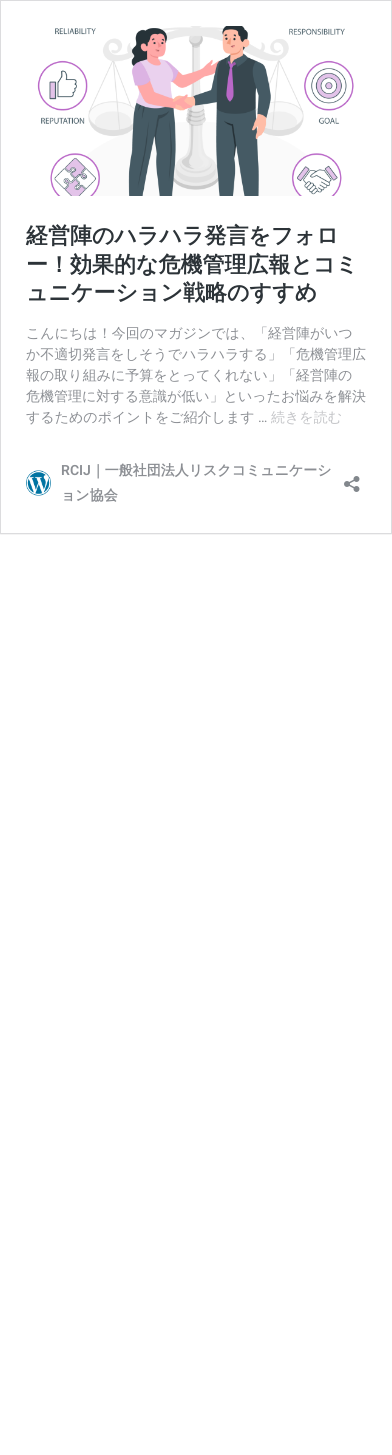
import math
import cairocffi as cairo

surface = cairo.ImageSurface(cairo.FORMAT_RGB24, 392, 1455)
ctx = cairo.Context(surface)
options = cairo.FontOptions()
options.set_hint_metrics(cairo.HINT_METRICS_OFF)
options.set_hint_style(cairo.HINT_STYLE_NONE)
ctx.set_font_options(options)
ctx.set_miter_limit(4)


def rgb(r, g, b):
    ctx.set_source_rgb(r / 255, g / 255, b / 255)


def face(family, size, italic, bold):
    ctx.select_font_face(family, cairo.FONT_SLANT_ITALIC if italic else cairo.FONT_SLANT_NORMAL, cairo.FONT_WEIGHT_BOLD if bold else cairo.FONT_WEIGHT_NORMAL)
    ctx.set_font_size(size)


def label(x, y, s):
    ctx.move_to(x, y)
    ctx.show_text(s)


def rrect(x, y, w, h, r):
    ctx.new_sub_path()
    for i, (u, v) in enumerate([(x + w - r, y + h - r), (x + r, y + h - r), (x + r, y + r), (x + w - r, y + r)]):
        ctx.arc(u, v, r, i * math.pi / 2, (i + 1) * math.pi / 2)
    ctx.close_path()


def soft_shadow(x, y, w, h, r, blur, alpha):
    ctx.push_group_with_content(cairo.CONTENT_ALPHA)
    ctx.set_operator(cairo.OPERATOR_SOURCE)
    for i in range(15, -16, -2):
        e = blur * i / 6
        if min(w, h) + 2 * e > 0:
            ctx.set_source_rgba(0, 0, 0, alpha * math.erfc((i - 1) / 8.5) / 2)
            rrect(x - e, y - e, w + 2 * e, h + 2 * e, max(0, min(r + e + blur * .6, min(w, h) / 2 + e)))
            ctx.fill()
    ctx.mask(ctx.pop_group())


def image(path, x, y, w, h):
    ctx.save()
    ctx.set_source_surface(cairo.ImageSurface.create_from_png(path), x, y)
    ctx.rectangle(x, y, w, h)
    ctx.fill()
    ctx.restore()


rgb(255, 255, 255)
ctx.paint()
ctx.save()
ctx.rectangle(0, 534, 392, 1)
ctx.clip()
rgb(0, 0, 0)
soft_shadow(0, 1, 392, 534, 0, 0.5, 0.05)
ctx.restore()
ctx.rectangle(0.5, 0.5, 391, 533)
rgb(220, 220, 222)
ctx.set_line_width(1)
ctx.stroke()
image('image0.png', 37, 26, 317, 170)
face('WenQuanYi Zen Hei', 22, 0, 1)
rgb(44, 51, 56)
label(26, 243, '経営陣のハラハラ発言をフォロ')
label(26, 272, 'ー！効果的な危機管理広報とコミ')
label(26, 300, 'ュニケーション戦略のすすめ')
face('WenQuanYi Zen Hei Medium', 14, 0, 0)
rgb(140, 143, 148)
label(26, 338, 'こんにちは！今回のマガジンでは、「経営陣がいつ')
label(26, 359, 'か不適切発言をしそうでハラハラする」「危機管理広')
label(26, 380, '報の取り組みに予算をとってくれない」「経営陣の')
label(26, 401, '危機管理に対する意識が低い」といったお悩みを解決')
label(26, 422, 'するためのポイントをご紹介します')
face('Roboto', 14, 0, 0)
label(258, 422, '…')
face('WenQuanYi Zen Hei Medium', 14, 0, 0)
rgb(195, 196, 199)
label(271, 422, '続きを読む')
image('image1.png', 26, 470, 25, 26)
face('Roboto SemiBold', 14, 0, 0)
rgb(140, 143, 148)
label(61, 475, 'RCIJ')
face('WenQuanYi Zen Hei', 14, 0, 1)
label(91, 475, '｜一般社団法人リスクコミュニケーシ')
label(61, 500, 'ョン協会')
image('image2.png', 344, 476, 16, 16)
surface.write_to_png('render.png')
